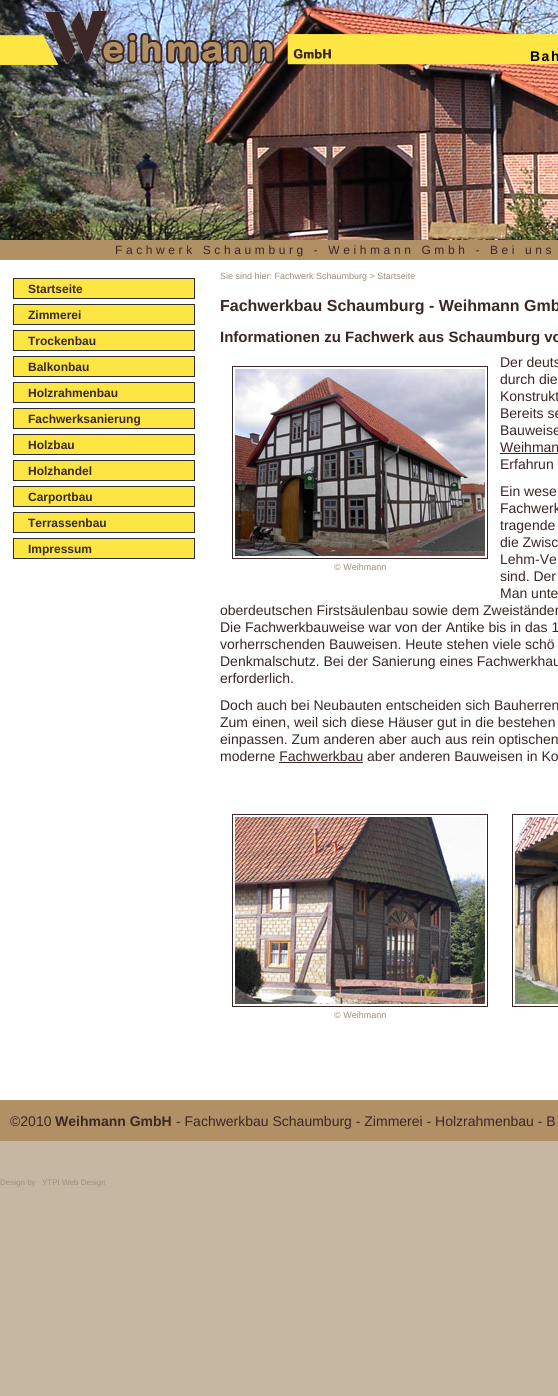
import math
import cairocffi as cairo

surface = cairo.ImageSurface(cairo.FORMAT_RGB24, 558, 1396)
ctx = cairo.Context(surface)
options = cairo.FontOptions()
options.set_hint_metrics(cairo.HINT_METRICS_OFF)
options.set_hint_style(cairo.HINT_STYLE_NONE)
ctx.set_font_options(options)
ctx.set_miter_limit(4)


def rgb(r, g, b):
    ctx.set_source_rgb(r / 255, g / 255, b / 255)


def face(family, size, italic, bold):
    ctx.select_font_face(family, cairo.FONT_SLANT_ITALIC if italic else cairo.FONT_SLANT_NORMAL, cairo.FONT_WEIGHT_BOLD if bold else cairo.FONT_WEIGHT_NORMAL)
    ctx.set_font_size(size)


def label(x, y, s):
    ctx.move_to(x, y)
    ctx.show_text(s)


def tracked(x, y, s, letter, word):
    ctx.move_to(x, y)
    for ch in s:
        ctx.show_text(ch)
        ctx.rel_move_to(letter + word * (ch == ' '), 0)


def rect(x, y, w, h):
    ctx.rectangle(x, y, w, h)
    ctx.fill()


def image(path, x, y, w, h):
    ctx.save()
    ctx.set_source_surface(cairo.ImageSurface.create_from_png(path), x, y)
    ctx.rectangle(x, y, w, h)
    ctx.fill()
    ctx.restore()


rgb(198, 183, 163)
ctx.paint()
image('image0.png', 0, 0, 558, 240)
image('image1.png', 0, 10, 558, 55)
face('Liberation Sans', 14, 0, 1)
rgb(0, 0, 0)
tracked(530, 61, 'Bah', 1.5, 0)
rgb(177, 144, 102)
rect(0, 240, 558, 20)
face('Liberation Sans', 12, 0, 0)
rgb(58, 39, 38)
tracked(115, 254, 'Fachwerk Schaumburg - Weihmann Gmbh - Bei uns', 3.6, 0)
rgb(255, 255, 255)
rect(0, 260, 558, 840)
ctx.rectangle(13.5, 278.5, 181, 20)
rgb(46, 46, 46)
ctx.set_line_width(1)
ctx.stroke()
rgb(253, 229, 68)
rect(14, 279, 180, 19)
face('Liberation Sans', 12, 0, 1)
rgb(58, 39, 38)
label(28, 293, 'Startseite')
ctx.rectangle(13.5, 304.5, 181, 20)
rgb(46, 46, 46)
ctx.stroke()
rgb(253, 229, 68)
rect(14, 305, 180, 19)
rgb(58, 39, 38)
label(28, 319, 'Zimmerei')
ctx.rectangle(13.5, 330.5, 181, 20)
rgb(46, 46, 46)
ctx.stroke()
rgb(253, 229, 68)
rect(14, 331, 180, 19)
rgb(58, 39, 38)
label(28, 345, 'Trockenbau')
ctx.rectangle(13.5, 356.5, 181, 20)
rgb(46, 46, 46)
ctx.stroke()
rgb(253, 229, 68)
rect(14, 357, 180, 19)
rgb(58, 39, 38)
label(28, 371, 'Balkonbau')
ctx.rectangle(13.5, 382.5, 181, 20)
rgb(46, 46, 46)
ctx.stroke()
rgb(253, 229, 68)
rect(14, 383, 180, 19)
rgb(58, 39, 38)
label(28, 397, 'Holzrahmenbau')
ctx.rectangle(13.5, 408.5, 181, 20)
rgb(46, 46, 46)
ctx.stroke()
rgb(253, 229, 68)
rect(14, 409, 180, 19)
rgb(58, 39, 38)
label(28, 423, 'Fachwerksanierung')
ctx.rectangle(13.5, 434.5, 181, 20)
rgb(46, 46, 46)
ctx.stroke()
rgb(253, 229, 68)
rect(14, 435, 180, 19)
rgb(58, 39, 38)
label(28, 449, 'Holzbau')
ctx.rectangle(13.5, 460.5, 181, 20)
rgb(46, 46, 46)
ctx.stroke()
rgb(253, 229, 68)
rect(14, 461, 180, 19)
rgb(58, 39, 38)
label(28, 475, 'Holzhandel')
ctx.rectangle(13.5, 486.5, 181, 20)
rgb(46, 46, 46)
ctx.stroke()
rgb(253, 229, 68)
rect(14, 487, 180, 19)
rgb(58, 39, 38)
label(28, 501, 'Carportbau')
ctx.rectangle(13.5, 512.5, 181, 20)
rgb(46, 46, 46)
ctx.stroke()
rgb(253, 229, 68)
rect(14, 513, 180, 19)
rgb(58, 39, 38)
label(28, 527, 'Terrassenbau')
ctx.rectangle(13.5, 538.5, 181, 20)
rgb(46, 46, 46)
ctx.stroke()
rgb(253, 229, 68)
rect(14, 539, 180, 19)
rgb(58, 39, 38)
label(28, 553, 'Impressum')
face('Liberation Sans', 9, 0, 0)
rgb(153, 141, 125)
label(220, 279, 'Sie sind hier: Fachwerk Schaumburg > Startseite')
face('Liberation Sans', 16, 0, 1)
rgb(58, 39, 38)
label(220, 311, 'Fachwerkbau Schaumburg - Weihmann Gmb')
face('Liberation Sans', 15, 0, 1)
label(220, 342, 'Informationen zu Fachwerk aus Schaumburg vo')
face('Liberation Sans', 14, 0, 0)
label(500, 367, 'Der deuts')
label(500, 384, 'durch die')
label(500, 401, 'Konstrukt')
label(500, 418, 'Bereits se')
label(500, 435, 'Bauweise')
label(500, 452, 'Weihman')
rect(500, 453, 58, 1)
label(500, 469, 'Erfahrun')
label(500, 496, 'Ein wese')
label(500, 513, 'Fachwerk')
label(500, 530, 'tragende')
label(500, 547, 'die Zwisc')
label(500, 564, 'Lehm-Ve')
label(500, 581, 'sind. Der')
label(500, 598, 'Man unte')
label(220, 615, 'oberdeutschen Firstsäulenbau sowie dem Zweiständer')
label(220, 632, 'Die Fachwerkbauweise war von der Antike bis in das 1')
label(220, 649, 'vorherrschenden Bauweisen. Heute stehen viele schö')
label(220, 666, 'Denkmalschutz. Bei der Sanierung eines Fachwerkhau')
label(220, 683, 'erforderlich.')
ctx.rectangle(232.5, 366.5, 255, 192)
ctx.stroke()
image('image2.png', 235, 369, 250, 187)
face('Liberation Sans', 9, 0, 0)
rgb(153, 141, 125)
label(334, 570, '© Weihmann')
face('Liberation Sans', 14, 0, 0)
rgb(58, 39, 38)
label(220, 710, 'Doch auch bei Neubauten entscheiden sich Bauherren')
label(220, 727, 'Zum einen, weil sich diese Häuser gut in die bestehen')
label(220, 744, 'einpassen. Zum anderen aber auch aus rein optischen')
label(220, 761, 'moderne Fachwerkbau aber anderen Bauweisen in Ko')
rect(279, 762, 84, 1)
ctx.rectangle(512.5, 814.5, 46, 192)
ctx.stroke()
image('image3.png', 515, 817, 43, 187)
ctx.rectangle(232.5, 814.5, 255, 192)
ctx.stroke()
image('image4.png', 235, 817, 250, 187)
face('Liberation Sans', 9, 0, 0)
rgb(153, 141, 125)
label(334, 1018, '© Weihmann')
rgb(177, 144, 102)
rect(0, 1100, 558, 41)
face('Liberation Sans', 14, 0, 0)
rgb(58, 39, 38)
label(10, 1126, '©2010')
face('Liberation Sans', 14, 0, 1)
label(55, 1126, 'Weihmann GmbH')
face('Liberation Sans', 14, 0, 0)
label(176, 1126, '- Fachwerkbau Schaumburg - Zimmerei - Holzrahmenbau - B')
face('Liberation Sans', 8, 0, 0)
rgb(153, 141, 125)
label(0, 1185, 'Design by')
label(42, 1185, 'YTPI Web Design')
surface.write_to_png('render.png')
